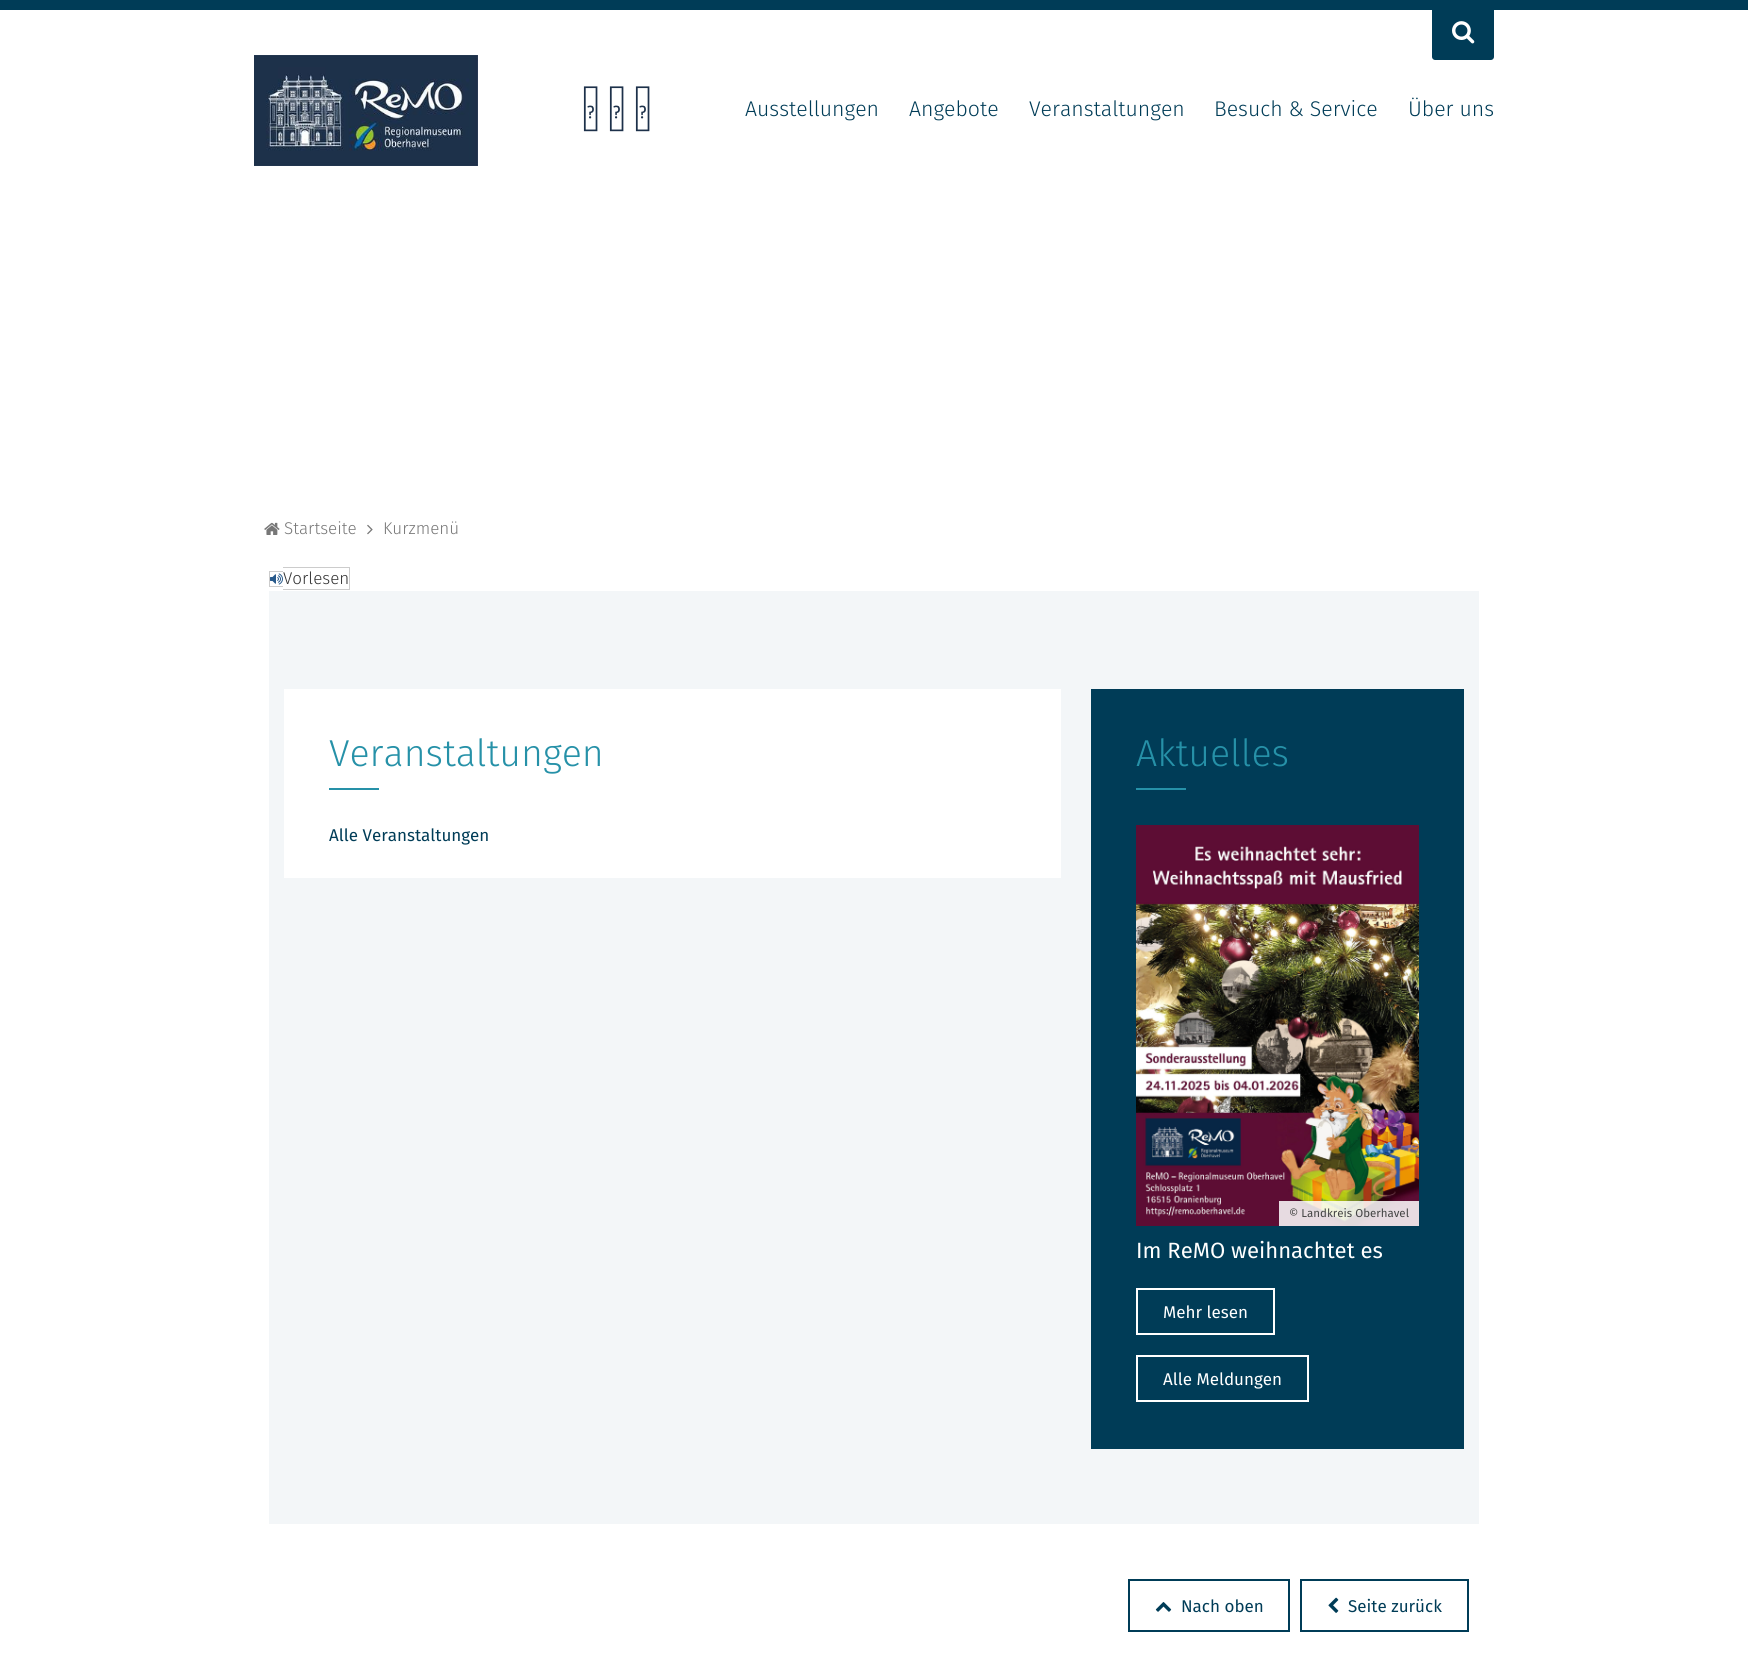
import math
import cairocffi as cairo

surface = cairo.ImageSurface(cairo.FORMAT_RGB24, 1748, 1664)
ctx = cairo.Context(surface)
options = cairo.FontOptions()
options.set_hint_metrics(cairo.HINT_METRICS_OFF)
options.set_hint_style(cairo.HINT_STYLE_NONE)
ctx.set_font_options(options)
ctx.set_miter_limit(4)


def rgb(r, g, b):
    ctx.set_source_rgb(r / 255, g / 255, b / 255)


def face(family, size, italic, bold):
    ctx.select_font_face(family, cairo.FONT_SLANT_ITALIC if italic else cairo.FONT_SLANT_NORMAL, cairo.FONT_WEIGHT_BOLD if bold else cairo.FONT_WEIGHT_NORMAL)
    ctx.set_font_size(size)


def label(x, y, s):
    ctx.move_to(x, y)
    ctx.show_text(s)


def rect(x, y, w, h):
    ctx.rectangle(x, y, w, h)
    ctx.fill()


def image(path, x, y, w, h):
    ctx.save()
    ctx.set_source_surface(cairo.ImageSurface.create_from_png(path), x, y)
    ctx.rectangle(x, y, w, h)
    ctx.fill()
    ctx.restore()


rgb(255, 255, 255)
ctx.paint()
rgb(0, 60, 87)
rect(0, 0, 1748, 10)
ctx.new_path()
ctx.move_to(1432, 10)
ctx.line_to(1494, 10)
ctx.line_to(1494, 57)
ctx.curve_to(1494, 58.5, 1492.5, 60, 1491, 60)
ctx.line_to(1435, 60)
ctx.curve_to(1433.5, 60, 1432, 58.5, 1432, 57)
ctx.close_path()
ctx.fill()
image('image0.png', 1452, 21, 23, 23)
image('image1.png', 254, 55, 224, 111)
image('image2.png', 583, 86, 15, 46)
image('image2.png', 609, 86, 15, 46)
image('image2.png', 635, 86, 15, 46)
face('Fira Sans Light', 21.25, 0, 0)
label(745, 116, 'Ausstellungen')
label(909, 116, 'Angebote')
label(1029, 116, 'Veranstaltungen')
label(1214, 116, 'Besuch & Service')
label(1408, 116, 'Über uns')
image('image3.png', 264, 522, 16, 13)
face('Fira Sans Light', 17, 0, 0)
rgb(119, 119, 119)
label(284, 534, 'Startseite')
image('image4.png', 367, 524, 6, 11)
label(383, 534, 'Kurzmenü')
image('image5.png', 270, 573, 13, 12)
rgb(51, 51, 51)
label(283, 584, 'Vorlesen')
rgb(204, 204, 204)
rect(269, 571, 14, 1)
rect(269, 586, 14, 1)
rect(269, 571, 1, 16)
rect(283, 567, 66, 1)
rect(283, 589, 66, 1)
rect(349, 567, 1, 23)
rgb(243, 246, 248)
rect(269, 591, 1210, 933)
rgb(255, 255, 255)
rect(284, 689, 777, 189)
face('Fira Sans Light', 37.5, 0, 0)
rgb(38, 145, 168)
label(329, 766, 'Veranstaltungen')
rect(329, 788, 50, 2)
face('Fira Sans', 17, 0, 0)
rgb(0, 60, 87)
label(329, 841, 'Alle Veranstaltungen')
rect(1091, 689, 373, 760)
face('Fira Sans Light', 37.5, 0, 0)
rgb(38, 145, 168)
label(1136, 766, 'Aktuelles')
rect(1136, 788, 50, 2)
image('image6.png', 1136, 825, 283, 401)
ctx.set_source_rgba(1, 1, 1, 0.85)
rect(1279, 1201, 140, 25)
face('Fira Sans', 11.5, 0, 0)
rgb(68, 68, 68)
label(1289, 1217, '© Landkreis Oberhavel')
face('Fira Sans', 22.1, 0, 0)
rgb(255, 255, 255)
label(1136, 1258, 'Im ReMO weihnachtet es')
ctx.rectangle(1137, 1289, 137, 45)
ctx.stroke()
face('Fira Sans', 17, 0, 0)
label(1163, 1318, 'Mehr lesen')
ctx.rectangle(1137, 1356, 171, 45)
ctx.stroke()
label(1163, 1385, 'Alle Meldungen')
ctx.rectangle(1129, 1580, 160, 51)
rgb(0, 60, 87)
ctx.stroke()
image('image7.png', 1155, 1602, 17, 10)
label(1181, 1612, 'Nach oben')
ctx.rectangle(1301, 1580, 167, 51)
ctx.stroke()
image('image8.png', 1328, 1597, 11, 16)
label(1348, 1612, 'Seite zurück')
surface.write_to_png('render.png')
